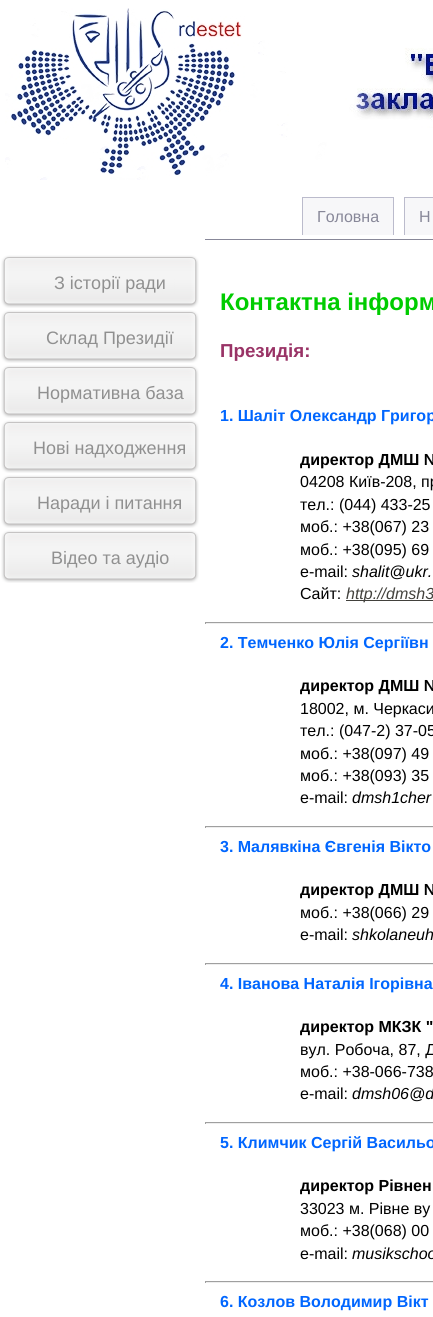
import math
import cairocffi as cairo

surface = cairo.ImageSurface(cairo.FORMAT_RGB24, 433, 1317)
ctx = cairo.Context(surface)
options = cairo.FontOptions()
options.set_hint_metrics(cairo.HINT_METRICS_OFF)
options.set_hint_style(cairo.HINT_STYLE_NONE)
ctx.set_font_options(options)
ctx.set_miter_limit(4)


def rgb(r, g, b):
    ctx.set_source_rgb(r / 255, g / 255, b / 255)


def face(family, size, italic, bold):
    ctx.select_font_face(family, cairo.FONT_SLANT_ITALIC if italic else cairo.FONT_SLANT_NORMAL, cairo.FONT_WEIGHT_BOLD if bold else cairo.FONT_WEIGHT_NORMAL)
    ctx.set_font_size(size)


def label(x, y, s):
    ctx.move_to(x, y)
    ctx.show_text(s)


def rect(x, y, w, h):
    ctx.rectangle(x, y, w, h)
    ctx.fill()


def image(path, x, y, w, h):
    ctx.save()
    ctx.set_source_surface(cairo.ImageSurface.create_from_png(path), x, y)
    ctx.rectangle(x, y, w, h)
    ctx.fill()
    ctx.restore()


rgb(255, 255, 255)
ctx.paint()
image('image0.png', 5, 8, 428, 172)
image('image1.png', 1, 255, 198, 53)
face('Liberation Sans', 18, 0, 0)
rgb(144, 144, 144)
label(54, 289, 'З історії ради')
image('image1.png', 1, 310, 198, 53)
label(46, 344, 'Склад Президії')
image('image1.png', 1, 365, 198, 53)
label(37, 399, 'Нормативна база')
image('image1.png', 1, 420, 198, 53)
label(33, 454, 'Нові надходження')
image('image1.png', 1, 475, 198, 53)
label(37, 509, 'Наради і питання')
image('image1.png', 1, 530, 198, 53)
label(51, 564, 'Відео та аудіо')
rgb(136, 136, 153)
rect(205, 239, 228, 1)
rgb(247, 247, 249)
rect(303, 198, 90, 37)
face('Liberation Sans', 16, 0, 0)
rgb(136, 136, 153)
label(317, 222, 'Головна')
rgb(187, 187, 204)
rect(302, 197, 92, 1)
rect(393, 197, 1, 38)
rect(302, 197, 1, 38)
rgb(247, 247, 249)
rect(405, 198, 28, 37)
rgb(136, 136, 153)
label(419, 222, 'Н')
rgb(187, 187, 204)
rect(404, 197, 29, 1)
rect(404, 197, 1, 38)
face('Liberation Sans', 24, 0, 1)
rgb(0, 204, 0)
label(220, 310, 'Контактна інформ')
face('Liberation Sans', 18.75, 0, 1)
rgb(153, 51, 102)
label(220, 357, 'Президія:')
face('Liberation Sans', 16, 0, 1)
rgb(0, 102, 255)
label(220, 421, '1. Шаліт Олександр Григор')
rgb(0, 0, 0)
label(300, 465, 'директор ДМШ №')
face('Liberation Sans', 16, 0, 0)
label(300, 487, '04208 Київ-208, пр')
label(300, 510, 'тел.: (044) 433-25')
label(300, 532, 'моб.: +38(067) 23')
label(300, 555, 'моб.: +38(095) 69')
label(300, 577, 'e-mail:')
face('Liberation Sans', 16, 1, 0)
label(352, 577, 'shalit@ukr.')
face('Liberation Sans', 16, 0, 0)
label(300, 599, 'Сайт:')
rgb(66, 65, 60)
rect(346, 600, 87, 1)
face('Liberation Sans', 16, 1, 0)
label(346, 599, 'http://dmsh3')
rgb(159, 159, 159)
rect(205, 622, 228, 1)
rgb(238, 238, 238)
rect(205, 623, 228, 1)
rgb(159, 159, 159)
rect(205, 622, 1, 2)
face('Liberation Sans', 16, 0, 1)
rgb(0, 102, 255)
label(220, 648, '2. Темченко Юлія Сергіївн')
rgb(0, 0, 0)
label(300, 691, 'директор ДМШ №')
face('Liberation Sans', 16, 0, 0)
label(300, 714, '18002, м. Черкаси')
label(300, 736, 'тел.: (047-2) 37-05')
label(300, 759, 'моб.: +38(097) 49')
label(300, 781, 'моб.: +38(093) 35')
label(300, 803, 'e-mail:')
face('Liberation Sans', 16, 1, 0)
label(352, 803, 'dmsh1cher')
rgb(159, 159, 159)
rect(205, 826, 228, 1)
rgb(238, 238, 238)
rect(205, 827, 228, 1)
rgb(159, 159, 159)
rect(205, 826, 1, 2)
face('Liberation Sans', 16, 0, 1)
rgb(0, 102, 255)
label(220, 852, '3. Малявкіна Євгенія Вікто')
rgb(0, 0, 0)
label(300, 895, 'директор ДМШ №')
face('Liberation Sans', 16, 0, 0)
label(300, 918, 'моб.: +38(066) 29')
label(300, 940, 'e-mail:')
face('Liberation Sans', 16, 1, 0)
label(352, 940, 'shkolaneuh')
rgb(159, 159, 159)
rect(205, 963, 228, 1)
rgb(238, 238, 238)
rect(205, 964, 228, 1)
rgb(159, 159, 159)
rect(205, 963, 1, 2)
face('Liberation Sans', 16, 0, 1)
rgb(0, 102, 255)
label(220, 989, '4. Іванова Наталія Ігорівна')
rgb(0, 0, 0)
label(300, 1032, 'директор МКЗК "')
face('Liberation Sans', 16, 0, 0)
label(300, 1055, 'вул. Робоча, 87, Д')
label(300, 1077, 'моб.: +38-066-738')
label(300, 1099, 'e-mail:')
face('Liberation Sans', 16, 1, 0)
label(352, 1099, 'dmsh06@d')
rgb(159, 159, 159)
rect(205, 1122, 228, 1)
rgb(238, 238, 238)
rect(205, 1123, 228, 1)
rgb(159, 159, 159)
rect(205, 1122, 1, 2)
face('Liberation Sans', 16, 0, 1)
rgb(0, 102, 255)
label(220, 1148, '5. Климчик Сергій Васильо')
rgb(0, 0, 0)
label(300, 1191, 'директор Рівнен')
face('Liberation Sans', 16, 0, 0)
label(300, 1214, '33023 м. Рівне ву')
label(300, 1236, 'моб.: +38(068) 00')
label(300, 1259, 'e-mail:')
face('Liberation Sans', 16, 1, 0)
label(352, 1259, 'musikschoo')
rgb(159, 159, 159)
rect(205, 1281, 228, 1)
rgb(238, 238, 238)
rect(205, 1282, 228, 1)
rgb(159, 159, 159)
rect(205, 1281, 1, 2)
face('Liberation Sans', 16, 0, 1)
rgb(0, 102, 255)
label(220, 1307, '6. Козлов Володимир Вікт')
surface.write_to_png('render.png')
